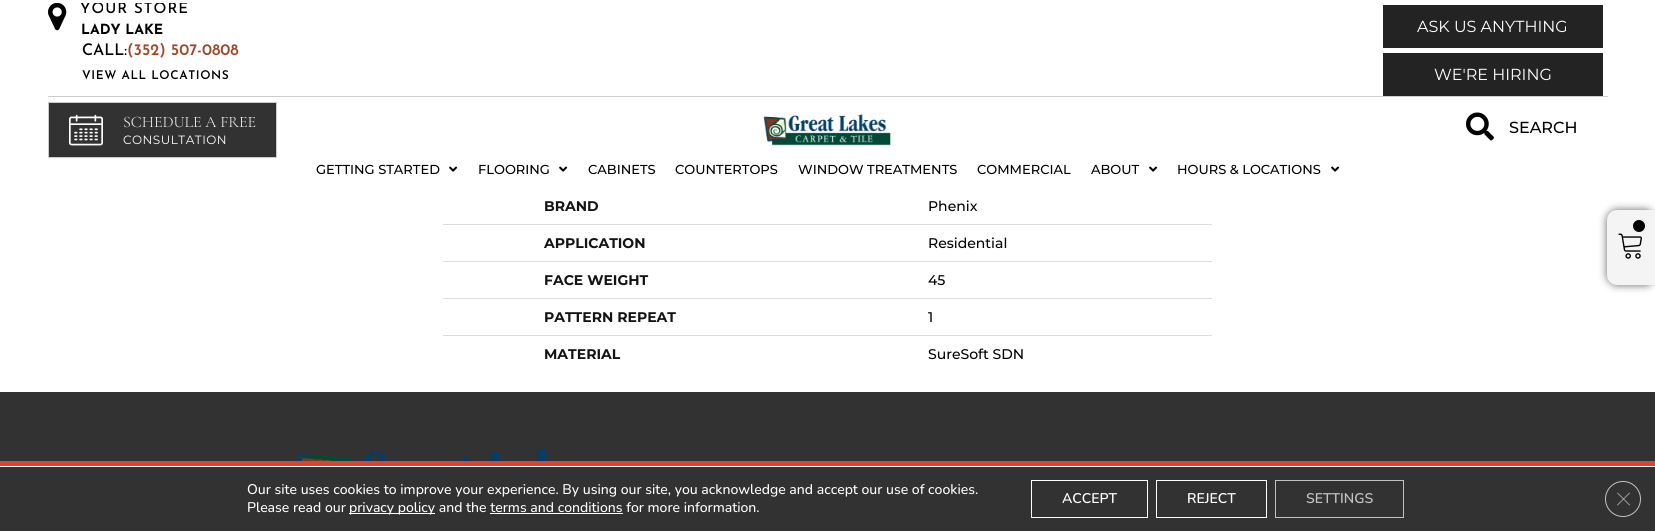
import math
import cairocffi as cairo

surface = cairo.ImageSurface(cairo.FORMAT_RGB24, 1655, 531)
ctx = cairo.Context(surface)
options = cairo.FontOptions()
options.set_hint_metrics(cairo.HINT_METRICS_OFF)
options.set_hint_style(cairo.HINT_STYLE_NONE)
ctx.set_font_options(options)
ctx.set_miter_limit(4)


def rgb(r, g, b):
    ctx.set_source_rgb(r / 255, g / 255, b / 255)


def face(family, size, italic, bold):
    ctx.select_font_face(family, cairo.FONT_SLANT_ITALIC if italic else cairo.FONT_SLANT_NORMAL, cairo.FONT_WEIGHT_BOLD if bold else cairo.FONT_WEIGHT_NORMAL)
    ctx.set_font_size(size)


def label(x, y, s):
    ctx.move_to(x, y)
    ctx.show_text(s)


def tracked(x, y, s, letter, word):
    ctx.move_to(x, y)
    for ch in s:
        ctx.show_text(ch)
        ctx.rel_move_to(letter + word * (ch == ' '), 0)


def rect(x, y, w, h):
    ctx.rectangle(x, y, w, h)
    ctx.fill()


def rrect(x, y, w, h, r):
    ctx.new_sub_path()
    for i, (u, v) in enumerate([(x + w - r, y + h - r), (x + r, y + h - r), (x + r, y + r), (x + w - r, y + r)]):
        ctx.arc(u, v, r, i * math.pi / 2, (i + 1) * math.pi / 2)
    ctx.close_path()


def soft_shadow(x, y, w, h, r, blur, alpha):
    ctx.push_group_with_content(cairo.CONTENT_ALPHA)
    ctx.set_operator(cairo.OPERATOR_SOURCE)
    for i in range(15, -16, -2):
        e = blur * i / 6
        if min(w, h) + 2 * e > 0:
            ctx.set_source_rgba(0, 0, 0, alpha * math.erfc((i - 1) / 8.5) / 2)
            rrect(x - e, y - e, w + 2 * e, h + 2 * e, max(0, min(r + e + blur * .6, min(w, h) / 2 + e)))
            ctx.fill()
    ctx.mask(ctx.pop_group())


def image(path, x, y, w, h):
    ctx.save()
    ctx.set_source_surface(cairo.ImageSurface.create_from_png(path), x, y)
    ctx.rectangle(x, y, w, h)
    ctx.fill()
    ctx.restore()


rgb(255, 255, 255)
ctx.paint()
ctx.save()
ctx.rectangle(48, 3, 240, 92)
ctx.clip()
face('Josefin Sans Medium', 15, 0, 0)
rgb(0, 0, 0)
tracked(80, 13, 'YOUR STORE', 1, 0)
ctx.restore()
image('image0.png', 48, 3, 19, 28)
face('Josefin Sans', 14, 0, 1)
rgb(0, 0, 0)
label(81, 34, 'LADY LAKE')
face('Josefin Sans Medium', 16, 0, 0)
label(82, 55, 'CALL:')
face('Josefin Sans SemiBold', 16, 0, 0)
rgb(164, 69, 38)
label(127, 55, '(352) 507-0808')
face('Josefin Sans SemiBold', 12, 0, 0)
rgb(0, 0, 0)
tracked(82, 79, 'VIEW ALL LOCATIONS', 0.6, 0)
rgb(35, 35, 35)
rect(1383, 5, 220, 43)
face('Montserrat', 16, 0, 0)
rgb(255, 255, 255)
label(1417, 32, 'ASK US ANYTHING')
rgb(35, 35, 35)
rect(1383, 53, 220, 43)
rgb(255, 255, 255)
label(1434, 80, 'WE\'RE HIRING')
rgb(204, 204, 204)
rect(48, 96, 1560, 1)
rgb(50, 50, 50)
ctx.rectangle(48.5, 102.5, 228, 55)
ctx.fill_preserve()
rgb(204, 204, 204)
ctx.set_line_width(1)
ctx.stroke()
image('image1.png', 69, 114, 34, 32)
face('Cormorant Garamond Light', 16, 0, 0)
rgb(255, 255, 255)
label(123, 127, 'SCHEDULE A FREE')
face('Montserrat', 12, 0, 0)
tracked(123, 144, 'CONSULTATION', 0.5, 0)
image('image2.png', 763, 114, 128, 32)
image('image3.png', 1466, 112, 28, 29)
face('Montserrat Medium', 16, 0, 0)
rgb(0, 0, 0)
label(1509, 133, 'SEARCH')
rgb(0, 0, 0)
soft_shadow(1608, 211, 46, 73, 9, 4.5, 0.75)
rgb(244, 244, 244)
ctx.new_path()
ctx.move_to(1617, 210)
ctx.line_to(1655, 210)
ctx.line_to(1655, 285)
ctx.line_to(1617, 285)
ctx.curve_to(1611.5, 285, 1607, 280.5, 1607, 275)
ctx.line_to(1607, 220)
ctx.curve_to(1607, 214.5, 1611.5, 210, 1617, 210)
ctx.close_path()
ctx.fill()
rgb(0, 0, 0)
ctx.arc(1639, 226, 6, 0, 2 * math.pi)
ctx.fill()
image('image4.png', 1618, 233, 24, 26)
face('Montserrat Medium', 13, 0, 0)
label(316, 174, 'GETTING STARTED')
image('image5.png', 449, 166, 9, 6)
label(478, 174, 'FLOORING')
image('image5.png', 559, 166, 9, 6)
label(588, 174, 'CABINETS')
label(675, 174, 'COUNTERTOPS')
label(798, 174, 'WINDOW TREATMENTS')
label(977, 174, 'COMMERCIAL')
label(1091, 174, 'ABOUT')
image('image5.png', 1149, 166, 9, 6)
label(1177, 174, 'HOURS & LOCATIONS')
image('image5.png', 1331, 166, 9, 6)
face('Montserrat', 14, 0, 1)
rgb(20, 20, 20)
label(544, 211, 'BRAND')
face('Montserrat Medium', 14, 0, 0)
rgb(0, 0, 0)
label(928, 211, 'Phenix')
face('Montserrat', 14, 0, 1)
rgb(20, 20, 20)
label(544, 248, 'APPLICATION')
rgb(221, 221, 221)
rect(443, 224, 769, 1)
face('Montserrat Medium', 14, 0, 0)
rgb(0, 0, 0)
label(928, 248, 'Residential')
face('Montserrat', 14, 0, 1)
rgb(20, 20, 20)
label(544, 285, 'FACE WEIGHT')
rgb(221, 221, 221)
rect(443, 261, 769, 1)
face('Montserrat Medium', 14, 0, 0)
rgb(0, 0, 0)
label(928, 285, '45')
face('Montserrat', 14, 0, 1)
rgb(20, 20, 20)
label(544, 322, 'PATTERN REPEAT')
rgb(221, 221, 221)
rect(443, 298, 769, 1)
face('Montserrat Medium', 14, 0, 0)
rgb(0, 0, 0)
label(928, 322, '1')
face('Montserrat', 14, 0, 1)
rgb(20, 20, 20)
label(544, 359, 'MATERIAL')
rgb(221, 221, 221)
rect(443, 335, 769, 1)
face('Montserrat Medium', 14, 0, 0)
rgb(0, 0, 0)
label(928, 359, 'SureSoft SDN')
rgb(50, 50, 50)
rect(0, 392, 1655, 69)
image('image6.png', 297, 448, 249, 13)
rgb(222, 66, 50)
rect(0, 461, 1655, 5)
rgb(50, 50, 50)
rect(0, 467, 1655, 64)
face('Nunito Medium', 14, 0, 0)
rgb(255, 255, 255)
label(247, 494, 'Our site uses cookies to improve your experience. By using our site, you acknowledge and accept our use of cookies.')
label(247, 512, 'Please read our')
rect(349, 513, 86, 1)
label(349, 512, 'privacy policy and the terms and conditions for more information.')
rect(490, 513, 133, 1)
ctx.rectangle(1031.5, 480.5, 116, 37)
ctx.stroke()
face('Nunito SemiBold', 14, 0, 0)
label(1062, 503, 'ACCEPT')
ctx.rectangle(1156.5, 480.5, 110, 37)
ctx.stroke()
label(1187, 503, 'REJECT')
ctx.rectangle(1275.5, 480.5, 128, 37)
rgb(194, 194, 194)
ctx.stroke()
label(1306, 503, 'SETTINGS')
ctx.new_path()
ctx.arc(1623, 499, 17.5, 0, 2 * math.pi)
ctx.stroke()
ctx.new_path()
ctx.move_to(1629.5, 492.5)
ctx.line_to(1630, 493)
ctx.line_to(1617.5, 505.5)
ctx.line_to(1617, 505)
ctx.close_path()
ctx.fill()
ctx.new_path()
ctx.move_to(1617, 493)
ctx.line_to(1617.5, 492.5)
ctx.line_to(1630, 505)
ctx.line_to(1629.5, 505.5)
ctx.close_path()
ctx.fill()
surface.write_to_png('render.png')
